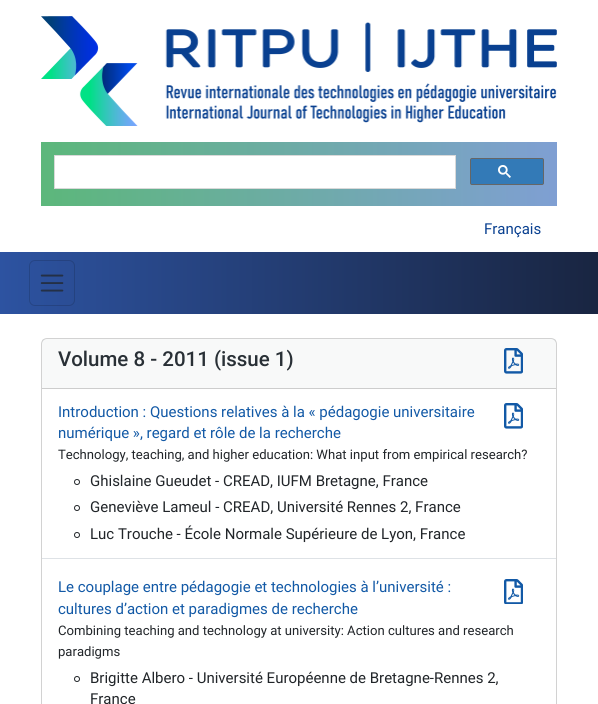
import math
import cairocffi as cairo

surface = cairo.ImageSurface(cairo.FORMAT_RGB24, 598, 704)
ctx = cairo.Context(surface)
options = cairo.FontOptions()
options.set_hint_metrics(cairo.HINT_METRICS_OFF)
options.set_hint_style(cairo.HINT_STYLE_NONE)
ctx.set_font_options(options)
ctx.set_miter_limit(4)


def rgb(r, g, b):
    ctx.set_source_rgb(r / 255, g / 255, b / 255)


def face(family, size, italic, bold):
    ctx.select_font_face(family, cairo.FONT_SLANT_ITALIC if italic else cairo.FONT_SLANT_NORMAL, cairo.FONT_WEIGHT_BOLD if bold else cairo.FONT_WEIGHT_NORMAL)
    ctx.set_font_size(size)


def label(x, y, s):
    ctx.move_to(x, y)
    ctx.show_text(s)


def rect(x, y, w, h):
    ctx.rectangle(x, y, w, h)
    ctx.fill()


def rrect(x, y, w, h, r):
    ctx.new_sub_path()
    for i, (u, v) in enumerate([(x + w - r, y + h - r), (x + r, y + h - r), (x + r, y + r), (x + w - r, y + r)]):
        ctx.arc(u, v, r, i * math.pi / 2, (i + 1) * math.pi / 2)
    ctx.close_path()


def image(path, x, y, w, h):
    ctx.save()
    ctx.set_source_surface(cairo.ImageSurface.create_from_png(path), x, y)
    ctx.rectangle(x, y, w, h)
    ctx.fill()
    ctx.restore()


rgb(255, 255, 255)
ctx.paint()
image('image0.png', 41, 16, 516, 110)
gradient = cairo.LinearGradient(41, 174, 557, 174)
gradient.add_color_stop_rgba(0, 0.361, 0.718, 0.482, 1)
gradient.add_color_stop_rgba(1, 0.498, 0.624, 0.827, 1)
ctx.set_source(gradient)
rect(41, 142, 516, 64)
rgb(255, 255, 255)
ctx.rectangle(54.5, 155.5, 401, 33)
ctx.fill_preserve()
rgb(217, 217, 217)
ctx.set_line_width(1)
ctx.stroke()
rgb(51, 122, 183)
rrect(470.5, 158.5, 73, 26, 1.5)
ctx.fill_preserve()
rgb(102, 102, 102)
ctx.stroke()
image('image1.png', 498, 165, 13, 13)
face('Roboto', 15, 0, 0)
rgb(9, 64, 144)
label(484, 234, 'Français')
gradient = cairo.LinearGradient(0, 283, 598, 283)
gradient.add_color_stop_rgba(0, 0.176, 0.325, 0.631, 1)
gradient.add_color_stop_rgba(1, 0.098, 0.145, 0.255, 1)
ctx.set_source(gradient)
rect(0, 252, 598, 62)
rrect(29.5, 260.5, 45, 45, 5.5)
ctx.set_source_rgba(0, 0, 0, 0.15)
ctx.stroke()
image('image2.png', 40, 274, 24, 18)
rrect(41.5, 338.5, 515, 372, 5.5)
rgb(210, 210, 210)
ctx.stroke()
ctx.set_source_rgba(0.129, 0.145, 0.161, 0.03)
rect(42, 339, 514, 49)
rgb(205, 205, 205)
rect(42, 388, 514, 1)
face('Roboto Medium', 20.5, 0, 0)
rgb(41, 48, 54)
label(58, 366, 'Volume 8 - 2011 (issue 1)')
image('image3.png', 504, 348, 19, 26)
rgb(222, 226, 230)
rect(42, 558, 514, 1)
face('Roboto', 15, 0, 0)
rgb(18, 89, 166)
label(58, 417, 'Introduction : Questions relatives à la « pédagogie universitaire')
image('image4.png', 504, 403, 19, 26)
label(58, 438, 'numérique », regard et rôle de la recherche')
face('Roboto', 13.1, 0, 0)
rgb(33, 37, 41)
label(58, 459, 'Technology, teaching, and higher education: What input from empirical research?')
ctx.new_path()
ctx.arc(77, 482, 2.5, 0, 2 * math.pi)
ctx.stroke()
face('Roboto', 15, 0, 0)
label(90, 486, 'Ghislaine Gueudet - CREAD, IUFM Bretagne, France')
ctx.new_path()
ctx.arc(77, 508, 2.5, 0, 2 * math.pi)
ctx.stroke()
label(90, 512, 'Geneviève Lameul - CREAD, Université Rennes 2, France')
ctx.new_path()
ctx.arc(77, 535, 2.5, 0, 2 * math.pi)
ctx.stroke()
label(90, 539, 'Luc Trouche - École Normale Supérieure de Lyon, France')
rgb(18, 89, 166)
label(58, 592, 'Le couplage entre pédagogie et technologies à l’université :')
image('image5.png', 504, 579, 19, 25)
label(58, 614, 'cultures d’action et paradigmes de recherche')
face('Roboto', 13.1, 0, 0)
rgb(33, 37, 41)
label(58, 635, 'Combining teaching and technology at university: Action cultures and research')
label(58, 656, 'paradigms')
ctx.new_path()
ctx.arc(77, 679, 2.5, 0, 2 * math.pi)
ctx.stroke()
face('Roboto', 15, 0, 0)
label(90, 683, 'Brigitte Albero - Université Européenne de Bretagne-Rennes 2,')
label(90, 704, 'France')
surface.write_to_png('render.png')
